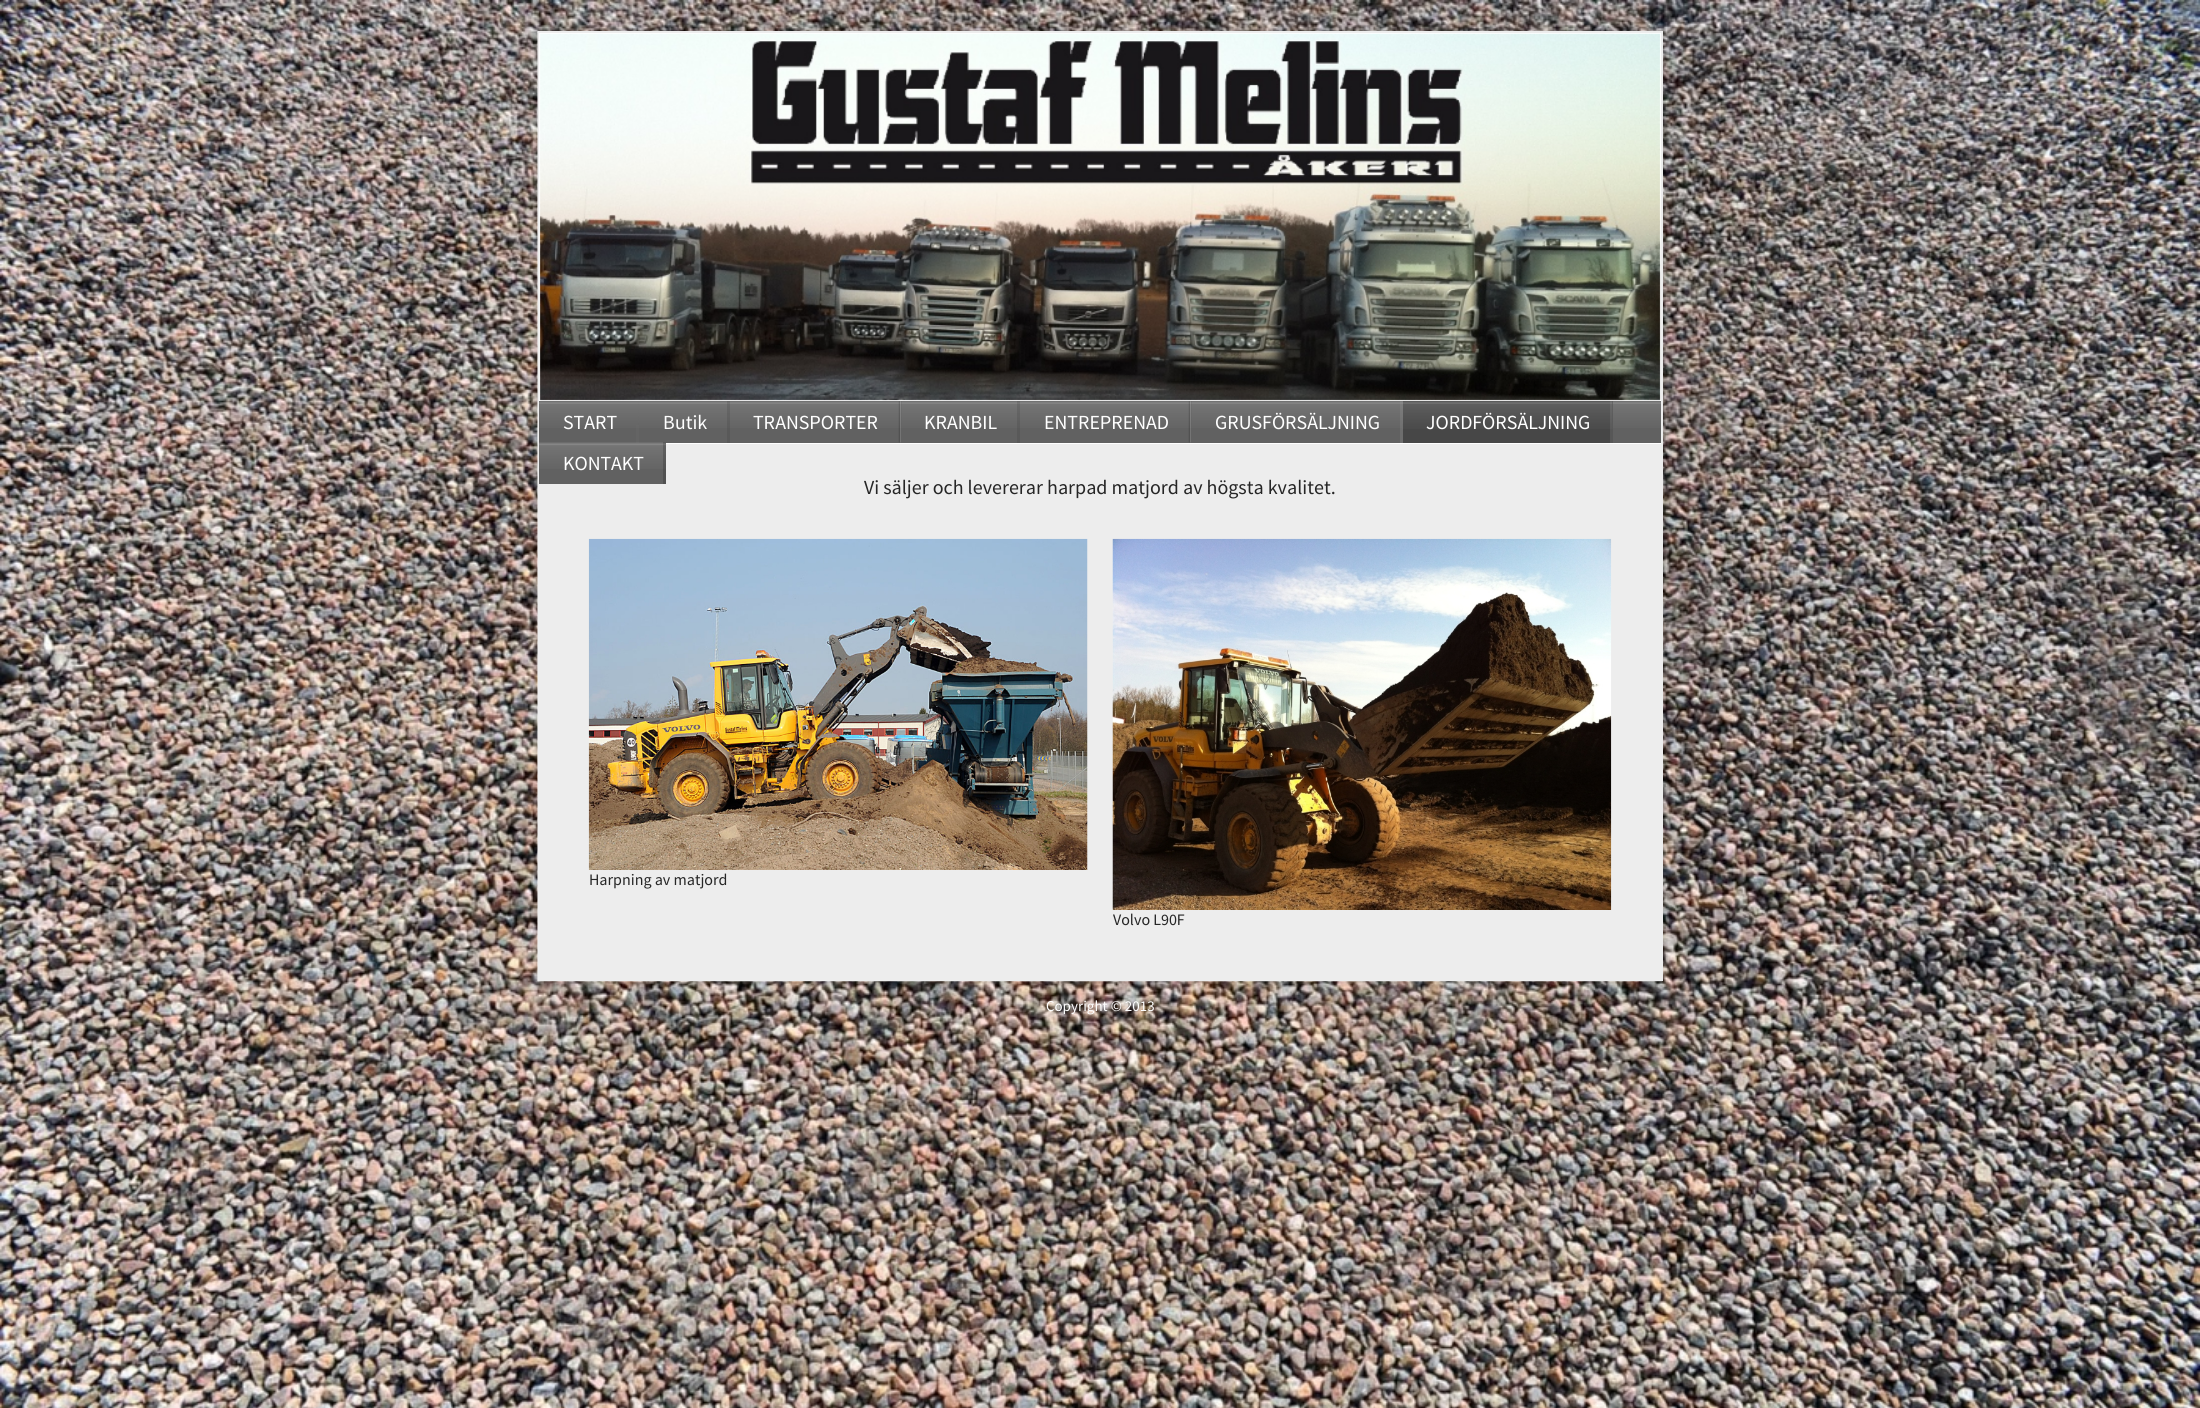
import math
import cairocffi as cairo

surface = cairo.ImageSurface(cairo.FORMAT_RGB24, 2200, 1408)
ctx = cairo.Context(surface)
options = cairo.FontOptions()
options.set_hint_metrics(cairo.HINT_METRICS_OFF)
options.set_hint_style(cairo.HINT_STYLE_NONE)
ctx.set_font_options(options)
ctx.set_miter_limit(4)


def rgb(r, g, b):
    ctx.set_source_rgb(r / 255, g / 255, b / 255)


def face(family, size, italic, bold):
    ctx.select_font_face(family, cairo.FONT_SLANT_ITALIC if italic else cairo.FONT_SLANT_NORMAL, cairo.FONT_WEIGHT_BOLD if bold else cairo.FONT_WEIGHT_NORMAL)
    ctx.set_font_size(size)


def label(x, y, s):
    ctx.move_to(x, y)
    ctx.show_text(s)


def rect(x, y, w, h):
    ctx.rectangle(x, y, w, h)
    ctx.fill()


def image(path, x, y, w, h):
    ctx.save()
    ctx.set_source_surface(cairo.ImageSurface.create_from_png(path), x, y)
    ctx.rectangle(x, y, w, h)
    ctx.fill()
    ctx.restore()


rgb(255, 255, 255)
ctx.paint()
image('image0.png', 0, 0, 2200, 1408)
image('image1.png', 534, 26, 1132, 7)
image('image2.png', 532, 31, 1136, 951)
rgb(237, 237, 237)
rect(538, 31, 1125, 950)
rgb(255, 255, 255)
rect(539, 33, 1122, 368)
image('image3.png', 539, 33, 1122, 368)
rgb(97, 97, 97)
rect(1613, 401, 48, 42)
image('image4.png', 1613, 401, 48, 27)
rgb(255, 255, 255)
rect(666, 443, 995, 1)
rgb(97, 97, 97)
rect(539, 401, 864, 42)
image('image5.png', 539, 401, 100, 27)
ctx.set_source_rgba(0.455, 0.455, 0.455, 0.17)
rect(636, 425, 3, 18)
face('Source Sans Pro', 20, 0, 0)
rgb(255, 255, 255)
label(563, 429, 'START')
image('image6.png', 638, 401, 92, 27)
ctx.set_source_rgba(0.216, 0.216, 0.216, 0.18)
rect(727, 401, 3, 42)
rgb(255, 255, 255)
label(663, 429, 'Butik')
image('image7.png', 730, 401, 171, 27)
image('image8.png', 898, 401, 3, 42)
label(753, 429, 'TRANSPORTER')
image('image9.png', 901, 401, 119, 27)
ctx.set_source_rgba(0.216, 0.216, 0.216, 0.18)
rect(1017, 401, 3, 42)
rgb(255, 255, 255)
label(924, 429, 'KRANBIL')
image('image7.png', 1020, 401, 171, 27)
image('image8.png', 1188, 401, 3, 42)
label(1044, 429, 'ENTREPRENAD')
image('image10.png', 1191, 401, 212, 27)
ctx.set_source_rgba(0.651, 0.651, 0.651, 0.17)
rect(1400, 401, 3, 42)
rgb(255, 255, 255)
label(1215, 429, 'GRUSFÖRSÄLJNING')
rgb(71, 71, 71)
rect(1403, 401, 210, 42)
image('image11.png', 1402, 401, 211, 28)
ctx.set_source_rgba(0.651, 0.651, 0.651, 0.17)
rect(1610, 401, 3, 42)
rgb(255, 255, 255)
label(1426, 429, 'JORDFÖRSÄLJNING')
rgb(97, 97, 97)
rect(539, 443, 127, 41)
image('image12.png', 539, 442, 127, 27)
ctx.set_source_rgba(0.043, 0.043, 0.043, 0.18)
rect(663, 442, 3, 42)
rgb(255, 255, 255)
label(563, 470, 'KONTAKT')
rgb(38, 38, 38)
label(864, 494, 'Vi säljer och levererar harpad matjord av högsta kvalitet.')
image('image13.png', 588, 538, 500, 332)
face('Source Sans Pro', 16, 0, 0)
label(589, 885, 'Harpning av matjord')
image('image14.png', 1112, 538, 500, 372)
label(1113, 925, 'Volvo L90F')
image('image15.png', 537, 981, 1126, 5)
face('Source Sans Pro', 15, 0, 0)
rgb(255, 255, 255)
label(1046, 1011, 'Copyright © 2013')
surface.write_to_png('render.png')
